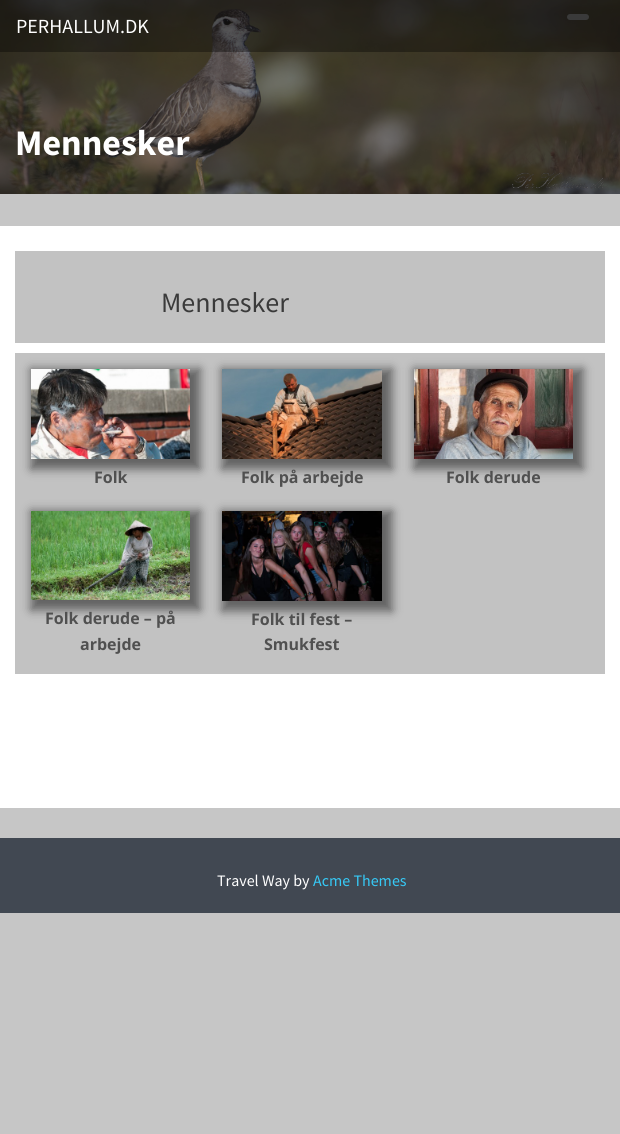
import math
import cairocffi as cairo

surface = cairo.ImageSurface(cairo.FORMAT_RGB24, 620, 1134)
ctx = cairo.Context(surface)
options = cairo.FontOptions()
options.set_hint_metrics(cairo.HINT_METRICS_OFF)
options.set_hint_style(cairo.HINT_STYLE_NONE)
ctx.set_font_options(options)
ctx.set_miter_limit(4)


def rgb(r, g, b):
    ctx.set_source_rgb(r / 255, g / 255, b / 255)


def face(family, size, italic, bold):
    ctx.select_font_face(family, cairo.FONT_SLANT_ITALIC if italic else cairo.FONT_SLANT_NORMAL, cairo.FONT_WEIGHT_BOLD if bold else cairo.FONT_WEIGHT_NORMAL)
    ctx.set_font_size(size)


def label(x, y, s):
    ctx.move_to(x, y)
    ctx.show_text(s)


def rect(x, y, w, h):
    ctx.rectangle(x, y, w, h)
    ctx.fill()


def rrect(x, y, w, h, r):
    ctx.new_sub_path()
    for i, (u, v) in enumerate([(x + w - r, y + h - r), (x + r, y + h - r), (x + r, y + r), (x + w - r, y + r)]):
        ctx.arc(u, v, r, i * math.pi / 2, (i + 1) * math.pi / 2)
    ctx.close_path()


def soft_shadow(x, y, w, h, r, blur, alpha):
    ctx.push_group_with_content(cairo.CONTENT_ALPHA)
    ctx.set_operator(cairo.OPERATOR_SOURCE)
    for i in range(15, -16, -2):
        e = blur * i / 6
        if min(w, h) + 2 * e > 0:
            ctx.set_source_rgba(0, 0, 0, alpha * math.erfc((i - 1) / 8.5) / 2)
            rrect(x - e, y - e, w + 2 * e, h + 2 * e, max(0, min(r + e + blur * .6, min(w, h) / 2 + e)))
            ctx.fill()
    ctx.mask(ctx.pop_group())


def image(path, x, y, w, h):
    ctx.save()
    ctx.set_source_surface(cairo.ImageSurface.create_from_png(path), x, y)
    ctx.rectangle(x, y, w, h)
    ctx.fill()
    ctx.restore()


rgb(198, 198, 198)
ctx.paint()
image('image0.png', 0, 0, 620, 194)
ctx.set_source_rgba(0, 0, 0, 0.35)
rect(0, 0, 620, 52)
rgb(58, 58, 58)
rrect(567, 14, 22, 6, 3)
ctx.fill()
face('Source Sans Pro', 20, 0, 0)
rgb(255, 255, 255)
label(16, 33, 'PERHALLUM.DK')
face('Source Sans Pro', 36, 0, 1)
label(15, 155, 'Mennesker')
rect(0, 226, 620, 582)
rgb(194, 194, 194)
rect(15, 251, 590, 92)
face('Source Sans Pro', 28, 0, 0)
rgb(58, 58, 58)
label(161, 312, 'Mennesker')
rgb(194, 194, 194)
rect(15, 353, 590, 321)
rgb(0, 0, 0)
soft_shadow(31, 369, 169, 100, 0, 5, 0.5)
image('image1.png', 31, 369, 159, 90)
face('Open Sans', 16, 0, 1)
rgb(80, 80, 80)
label(94, 483, 'Folk')
rgb(0, 0, 0)
soft_shadow(31, 511, 169, 99, 0, 5, 0.5)
image('image2.png', 31, 511, 159, 89)
rgb(80, 80, 80)
label(45, 624, 'Folk derude – på')
label(80, 650, 'arbejde')
rgb(0, 0, 0)
soft_shadow(222, 369, 170, 100, 0, 5, 0.5)
image('image3.png', 222, 369, 160, 90)
rgb(80, 80, 80)
label(241, 483, 'Folk på arbejde')
rgb(0, 0, 0)
soft_shadow(222, 511, 170, 100, 0, 5, 0.5)
image('image4.png', 222, 511, 160, 90)
rgb(80, 80, 80)
label(251, 625, 'Folk til fest –')
label(264, 650, 'Smukfest')
rgb(0, 0, 0)
soft_shadow(414, 369, 169, 100, 0, 5, 0.5)
image('image5.png', 414, 369, 159, 90)
rgb(80, 80, 80)
label(446, 483, 'Folk derude')
rgb(65, 72, 82)
rect(0, 838, 620, 75)
face('Source Sans Pro', 16, 0, 0)
rgb(255, 255, 255)
label(217, 886, 'Travel Way by')
rgb(54, 202, 247)
label(313, 886, 'Acme Themes')
surface.write_to_png('render.png')
